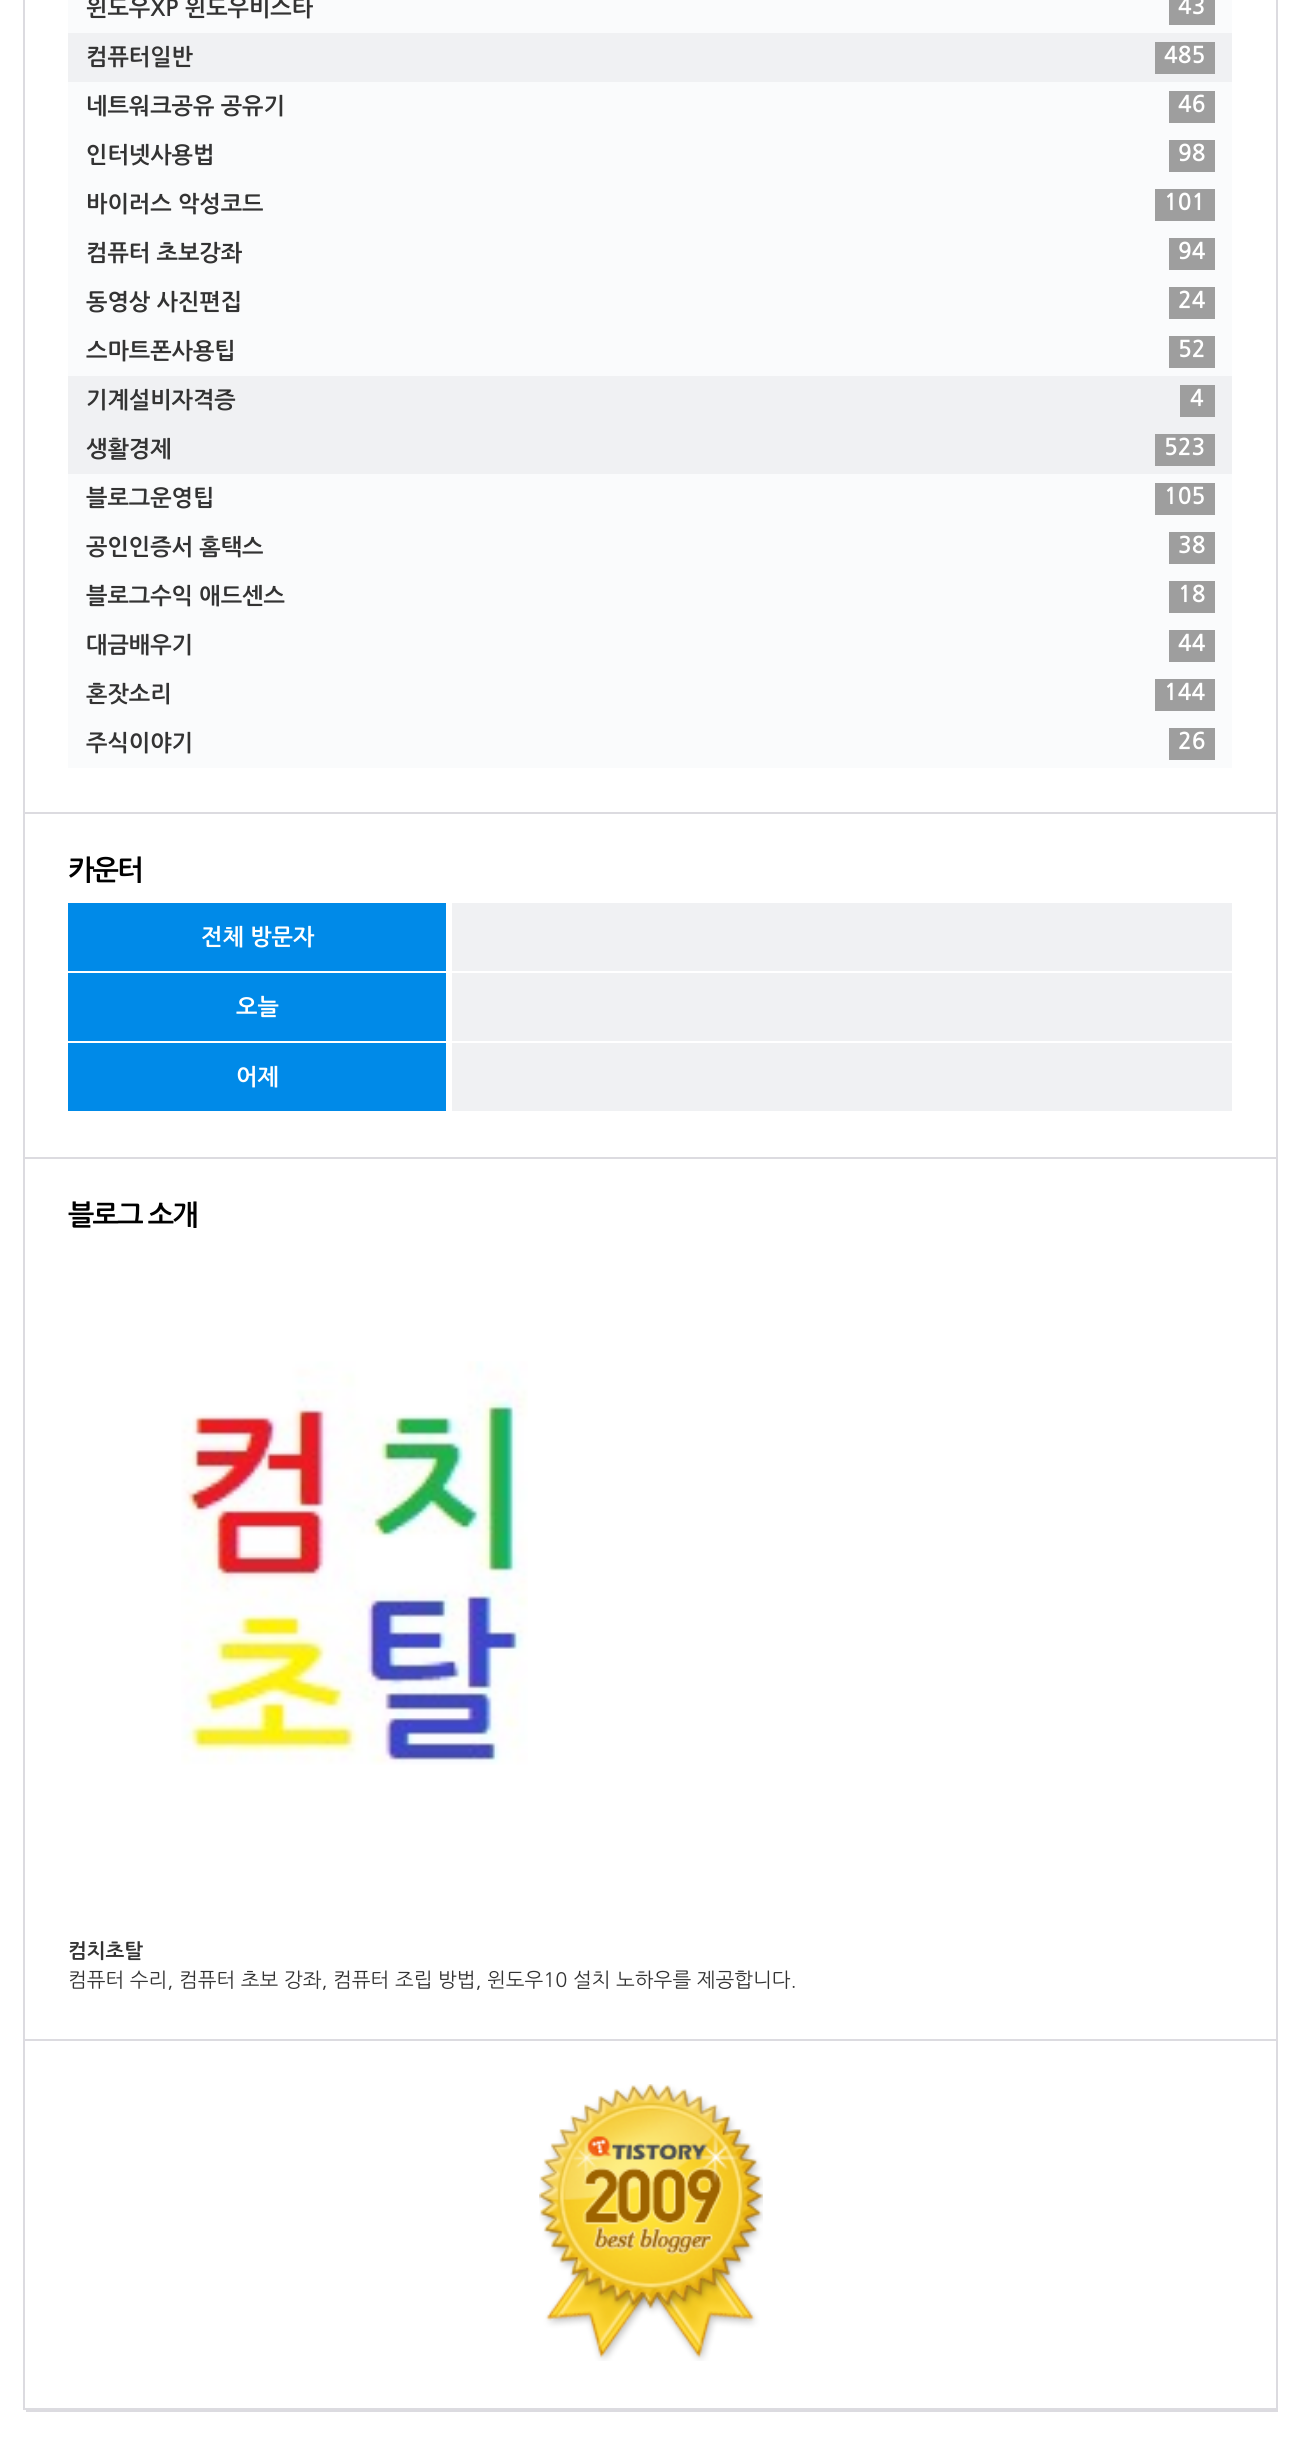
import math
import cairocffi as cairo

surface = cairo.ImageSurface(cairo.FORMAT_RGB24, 1303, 2445)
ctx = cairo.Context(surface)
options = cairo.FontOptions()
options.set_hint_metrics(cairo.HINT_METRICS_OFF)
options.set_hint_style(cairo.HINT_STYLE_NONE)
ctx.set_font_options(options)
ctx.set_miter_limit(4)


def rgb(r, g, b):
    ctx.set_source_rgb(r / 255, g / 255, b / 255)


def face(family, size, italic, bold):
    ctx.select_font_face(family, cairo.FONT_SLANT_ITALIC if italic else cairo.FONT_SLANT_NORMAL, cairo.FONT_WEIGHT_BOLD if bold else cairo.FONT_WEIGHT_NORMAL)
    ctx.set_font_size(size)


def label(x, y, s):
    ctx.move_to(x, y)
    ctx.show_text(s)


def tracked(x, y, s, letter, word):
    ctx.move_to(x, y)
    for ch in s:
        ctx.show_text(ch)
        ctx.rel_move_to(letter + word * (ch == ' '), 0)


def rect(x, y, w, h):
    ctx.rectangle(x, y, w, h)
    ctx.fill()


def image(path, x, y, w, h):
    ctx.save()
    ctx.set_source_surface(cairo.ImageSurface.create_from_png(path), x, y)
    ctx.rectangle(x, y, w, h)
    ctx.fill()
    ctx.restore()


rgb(255, 255, 255)
ctx.paint()
rgb(220, 219, 224)
rect(1276, 0, 2, 2410)
rect(23, 0, 2, 2410)
rect(25, 812, 1251, 2)
rgb(250, 251, 252)
rect(68, 0, 1164, 33)
face('NanumGothic', 22.75, 0, 1)
rgb(51, 51, 51)
label(86, 16, '윈도우XP 윈도우비스타')
rgb(158, 158, 158)
rect(1169, 0, 46, 25)
rgb(255, 255, 255)
label(1178, 14, '43')
rgb(240, 241, 243)
rect(68, 33, 1164, 49)
rgb(51, 51, 51)
label(86, 65, '컴퓨터일반')
rgb(158, 158, 158)
rect(1155, 42, 60, 32)
rgb(255, 255, 255)
label(1164, 63, '485')
rgb(250, 251, 252)
rect(68, 82, 1164, 294)
rgb(51, 51, 51)
label(86, 114, '네트워크공유 공유기')
rgb(158, 158, 158)
rect(1169, 91, 46, 32)
rgb(255, 255, 255)
label(1178, 112, '46')
rgb(51, 51, 51)
label(86, 163, '인터넷사용법')
rgb(158, 158, 158)
rect(1169, 140, 46, 32)
rgb(255, 255, 255)
label(1178, 161, '98')
rgb(51, 51, 51)
label(86, 212, '바이러스 악성코드')
rgb(158, 158, 158)
rect(1155, 189, 60, 32)
rgb(255, 255, 255)
label(1164, 210, '101')
rgb(51, 51, 51)
label(86, 261, '컴퓨터 초보강좌')
rgb(158, 158, 158)
rect(1169, 238, 46, 32)
rgb(255, 255, 255)
label(1178, 259, '94')
rgb(51, 51, 51)
label(86, 310, '동영상 사진편집')
rgb(158, 158, 158)
rect(1169, 287, 46, 32)
rgb(255, 255, 255)
label(1178, 308, '24')
rgb(51, 51, 51)
label(86, 359, '스마트폰사용팁')
rgb(158, 158, 158)
rect(1169, 336, 46, 32)
rgb(255, 255, 255)
label(1178, 357, '52')
rgb(240, 241, 243)
rect(68, 376, 1164, 98)
rgb(51, 51, 51)
label(86, 408, '기계설비자격증')
rgb(158, 158, 158)
rect(1180, 385, 35, 32)
rgb(255, 255, 255)
label(1190, 406, '4')
rgb(51, 51, 51)
label(86, 457, '생활경제')
rgb(158, 158, 158)
rect(1155, 434, 60, 32)
rgb(255, 255, 255)
label(1164, 455, '523')
rgb(250, 251, 252)
rect(68, 474, 1164, 294)
rgb(51, 51, 51)
label(86, 506, '블로그운영팁')
rgb(158, 158, 158)
rect(1155, 483, 60, 32)
rgb(255, 255, 255)
label(1164, 504, '105')
rgb(51, 51, 51)
label(86, 555, '공인인증서 홈택스')
rgb(158, 158, 158)
rect(1169, 532, 46, 32)
rgb(255, 255, 255)
label(1178, 553, '38')
rgb(51, 51, 51)
label(86, 604, '블로그수익 애드센스')
rgb(158, 158, 158)
rect(1169, 581, 46, 32)
rgb(255, 255, 255)
label(1178, 602, '18')
rgb(51, 51, 51)
label(86, 653, '대금배우기')
rgb(158, 158, 158)
rect(1169, 630, 46, 32)
rgb(255, 255, 255)
label(1178, 651, '44')
rgb(51, 51, 51)
label(86, 702, '혼잣소리')
rgb(158, 158, 158)
rect(1155, 679, 60, 32)
rgb(255, 255, 255)
label(1164, 700, '144')
rgb(51, 51, 51)
label(86, 751, '주식이야기')
rgb(158, 158, 158)
rect(1169, 728, 46, 32)
rgb(255, 255, 255)
label(1178, 749, '26')
rgb(220, 219, 224)
rect(25, 1157, 1251, 2)
face('NanumGothic', 28, 0, 1)
rgb(0, 0, 0)
tracked(68, 880, '카운터', -1.75, 0)
rgb(0, 138, 232)
rect(68, 903, 378, 68)
face('NanumGothic', 22.75, 0, 1)
rgb(255, 255, 255)
label(201, 945, '전체 방문자')
rgb(240, 241, 243)
rect(452, 903, 780, 68)
rgb(0, 138, 232)
rect(68, 973, 378, 68)
rgb(255, 255, 255)
label(236, 1015, '오늘')
rgb(240, 241, 243)
rect(452, 973, 780, 68)
rgb(0, 138, 232)
rect(68, 1043, 378, 68)
rgb(255, 255, 255)
label(236, 1085, '어제')
rgb(240, 241, 243)
rect(452, 1043, 780, 68)
rgb(220, 219, 224)
rect(25, 2039, 1251, 2)
face('NanumGothic', 28, 0, 1)
rgb(0, 0, 0)
tracked(68, 1225, '블로그 소개', -1.75, 0)
image('image0.png', 181, 1361, 347, 404)
face('NanumGothic', 19.95, 0, 1)
rgb(51, 51, 51)
label(68, 1958, '컴치초탈')
face('NanumGothic', 19.95, 0, 0)
label(68, 1987, '컴퓨터 수리, 컴퓨터 초보 강좌, 컴퓨터 조립 방법,')
label(487, 1987, '윈도우10 설치 노하우를 제공합니다.')
rgb(220, 219, 224)
rect(25, 2408, 1251, 2)
image('image1.png', 539, 2084, 224, 277)
rect(26, 2410, 1252, 2)
surface.write_to_png('render.png')
